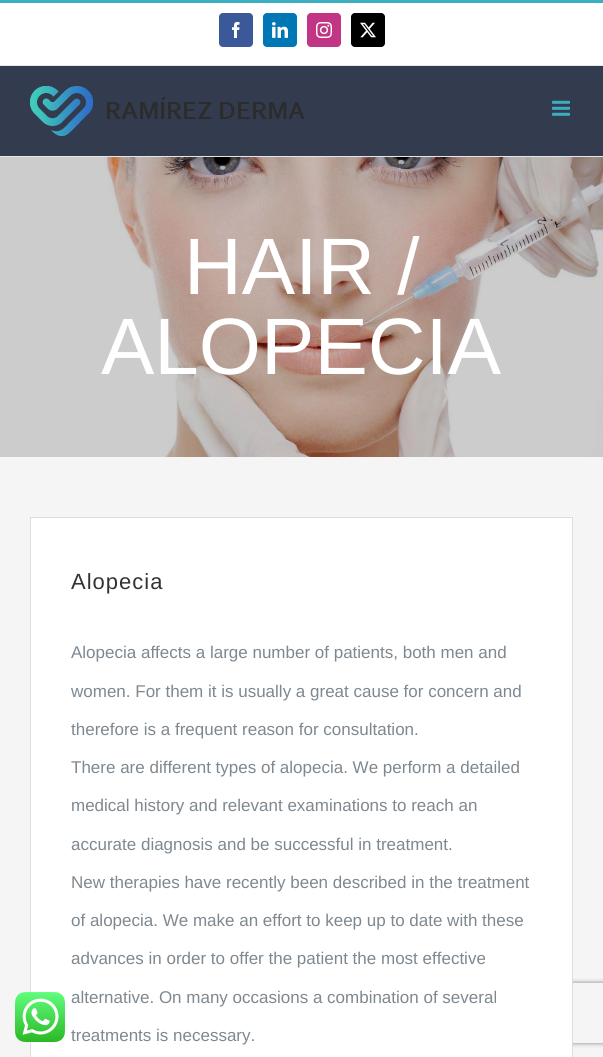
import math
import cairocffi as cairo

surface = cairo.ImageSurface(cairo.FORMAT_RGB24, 603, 1057)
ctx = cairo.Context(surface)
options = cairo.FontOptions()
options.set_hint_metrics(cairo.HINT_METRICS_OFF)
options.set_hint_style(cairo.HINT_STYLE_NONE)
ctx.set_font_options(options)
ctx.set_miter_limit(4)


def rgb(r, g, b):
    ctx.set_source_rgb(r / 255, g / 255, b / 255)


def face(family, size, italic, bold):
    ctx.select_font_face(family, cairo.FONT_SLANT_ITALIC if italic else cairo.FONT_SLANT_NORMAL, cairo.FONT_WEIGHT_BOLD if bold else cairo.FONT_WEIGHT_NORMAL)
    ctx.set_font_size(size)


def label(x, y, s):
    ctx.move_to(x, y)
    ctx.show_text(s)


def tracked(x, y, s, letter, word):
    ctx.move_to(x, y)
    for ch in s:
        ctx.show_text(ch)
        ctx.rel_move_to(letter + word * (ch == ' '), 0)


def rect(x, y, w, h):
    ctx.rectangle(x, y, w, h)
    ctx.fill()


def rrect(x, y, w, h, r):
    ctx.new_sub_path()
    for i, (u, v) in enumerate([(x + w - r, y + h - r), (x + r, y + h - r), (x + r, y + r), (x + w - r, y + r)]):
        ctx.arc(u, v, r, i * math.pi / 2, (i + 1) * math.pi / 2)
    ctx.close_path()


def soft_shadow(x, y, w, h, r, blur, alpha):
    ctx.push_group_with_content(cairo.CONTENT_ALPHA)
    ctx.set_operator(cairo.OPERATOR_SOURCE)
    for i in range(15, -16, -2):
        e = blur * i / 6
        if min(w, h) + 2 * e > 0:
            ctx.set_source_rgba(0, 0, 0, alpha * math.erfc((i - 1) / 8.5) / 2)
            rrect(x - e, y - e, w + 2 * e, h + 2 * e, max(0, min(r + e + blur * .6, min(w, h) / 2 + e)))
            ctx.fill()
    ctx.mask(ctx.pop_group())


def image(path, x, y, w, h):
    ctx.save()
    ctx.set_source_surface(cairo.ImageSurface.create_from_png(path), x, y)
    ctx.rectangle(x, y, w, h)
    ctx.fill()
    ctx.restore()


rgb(245, 245, 245)
ctx.paint()
ctx.save()
ctx.set_fill_rule(cairo.FILL_RULE_EVEN_ODD)
ctx.new_path()
ctx.move_to(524, 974)
ctx.line_to(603, 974)
ctx.line_to(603, 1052)
ctx.line_to(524, 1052)
ctx.close_path()
ctx.move_to(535, 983)
ctx.line_to(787, 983)
ctx.curve_to(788, 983, 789, 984, 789, 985)
ctx.line_to(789, 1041)
ctx.curve_to(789, 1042, 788, 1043, 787, 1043)
ctx.line_to(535, 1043)
ctx.curve_to(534, 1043, 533, 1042, 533, 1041)
ctx.line_to(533, 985)
ctx.curve_to(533, 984, 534, 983, 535, 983)
ctx.close_path()
ctx.clip()
rgb(128, 128, 128)
soft_shadow(533, 983, 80, 60, 2, 2.5, 1)
ctx.restore()
rgb(255, 255, 255)
ctx.rectangle(30.5, 517.5, 542, 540)
ctx.fill_preserve()
rgb(221, 221, 221)
ctx.set_line_width(1)
ctx.stroke()
image('image0.png', 15, 992, 50, 50)
rgb(255, 255, 255)
rect(0, 3, 603, 62)
rgb(59, 175, 191)
rect(0, 0, 603, 3)
rgb(229, 229, 229)
rect(0, 65, 603, 1)
rgb(59, 89, 152)
rrect(219.5, 13.5, 33, 33, 3.5)
ctx.fill_preserve()
ctx.stroke()
image('image1.png', 232, 22, 8, 16)
rgb(0, 119, 181)
rrect(263.5, 13.5, 33, 33, 3.5)
ctx.fill_preserve()
ctx.stroke()
image('image2.png', 272, 22, 16, 16)
rgb(193, 53, 132)
rrect(307.5, 13.5, 33, 33, 3.5)
ctx.fill_preserve()
ctx.stroke()
image('image3.png', 316, 22, 16, 16)
rgb(0, 0, 0)
rrect(351.5, 13.5, 33, 33, 3.5)
ctx.fill_preserve()
ctx.stroke()
image('image4.png', 360, 22, 16, 16)
rgb(51, 60, 78)
rect(0, 66, 603, 90)
rgb(229, 229, 229)
rect(0, 156, 603, 1)
image('image5.png', 30, 86, 275, 50)
image('image6.png', 552, 100, 18, 16)
image('image7.png', 0, 157, 603, 300)
face('Liberation Sans', 80, 0, 0)
rgb(255, 255, 255)
label(184, 294, 'HAIR /')
label(101, 374, 'ALOPECIA')
face('Liberation Sans', 22, 0, 0)
rgb(51, 51, 51)
tracked(71, 589, 'Alopecia', 1, 0)
face('Liberation Sans', 17, 0, 0)
rgb(126, 136, 144)
label(71, 658, 'Alopecia affects a large number of patients, both men and')
label(71, 697, 'women. For them it is usually a great cause for concern and')
label(71, 735, 'therefore is a frequent reason for consultation.')
label(71, 773, 'There are different types of alopecia. We perform a detailed')
label(71, 811, 'medical history and relevant examinations to reach an')
label(71, 850, 'accurate diagnosis and be successful in treatment.')
label(71, 888, 'New therapies have recently been described in the treatment')
label(71, 926, 'of alopecia. We make an effort to keep up to date with these')
label(71, 964, 'advances in order to offer the patient the most effective')
label(71, 1003, 'alternative. On many occasions a combination of several')
label(71, 1041, 'treatments is necessary.')
surface.write_to_png('render.png')
